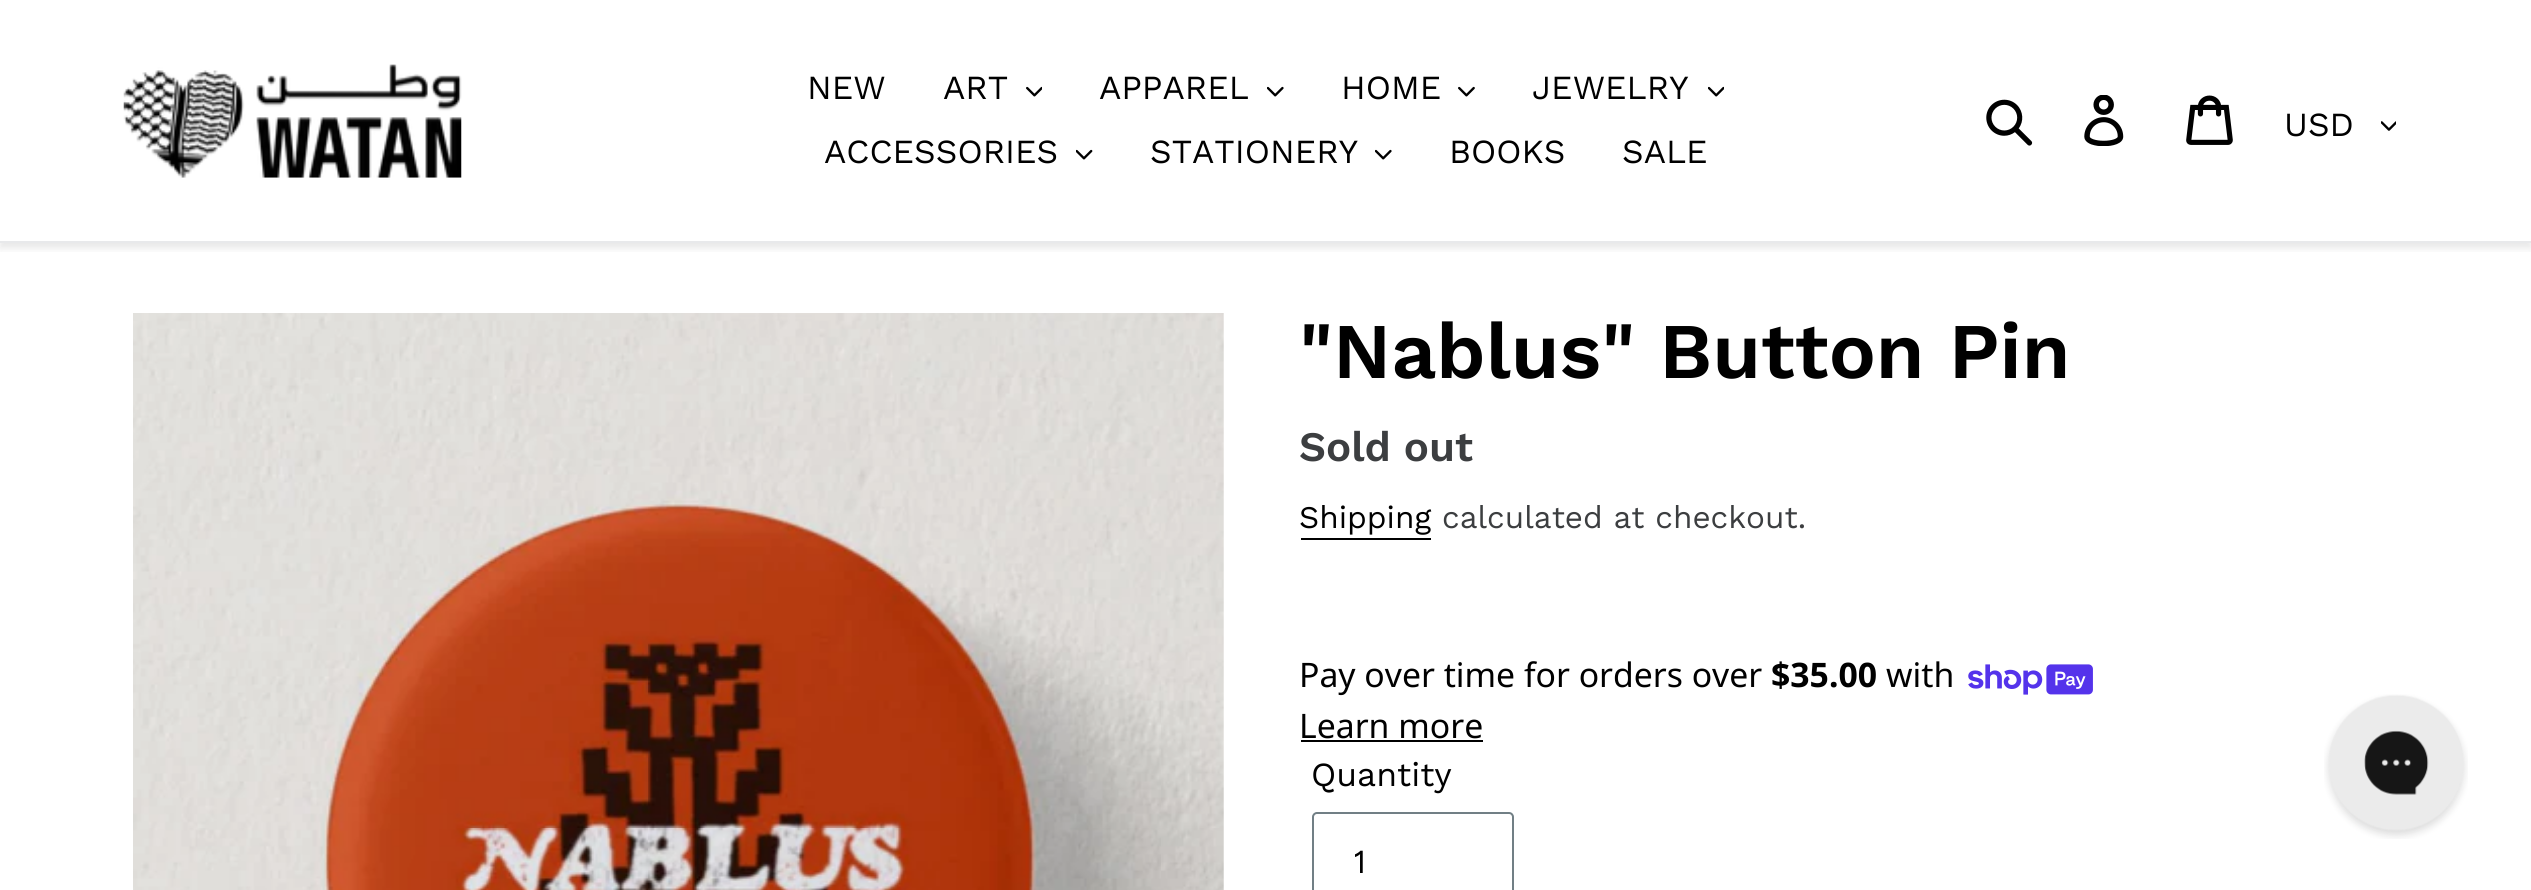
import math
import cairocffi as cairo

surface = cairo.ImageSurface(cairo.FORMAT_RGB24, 2531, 890)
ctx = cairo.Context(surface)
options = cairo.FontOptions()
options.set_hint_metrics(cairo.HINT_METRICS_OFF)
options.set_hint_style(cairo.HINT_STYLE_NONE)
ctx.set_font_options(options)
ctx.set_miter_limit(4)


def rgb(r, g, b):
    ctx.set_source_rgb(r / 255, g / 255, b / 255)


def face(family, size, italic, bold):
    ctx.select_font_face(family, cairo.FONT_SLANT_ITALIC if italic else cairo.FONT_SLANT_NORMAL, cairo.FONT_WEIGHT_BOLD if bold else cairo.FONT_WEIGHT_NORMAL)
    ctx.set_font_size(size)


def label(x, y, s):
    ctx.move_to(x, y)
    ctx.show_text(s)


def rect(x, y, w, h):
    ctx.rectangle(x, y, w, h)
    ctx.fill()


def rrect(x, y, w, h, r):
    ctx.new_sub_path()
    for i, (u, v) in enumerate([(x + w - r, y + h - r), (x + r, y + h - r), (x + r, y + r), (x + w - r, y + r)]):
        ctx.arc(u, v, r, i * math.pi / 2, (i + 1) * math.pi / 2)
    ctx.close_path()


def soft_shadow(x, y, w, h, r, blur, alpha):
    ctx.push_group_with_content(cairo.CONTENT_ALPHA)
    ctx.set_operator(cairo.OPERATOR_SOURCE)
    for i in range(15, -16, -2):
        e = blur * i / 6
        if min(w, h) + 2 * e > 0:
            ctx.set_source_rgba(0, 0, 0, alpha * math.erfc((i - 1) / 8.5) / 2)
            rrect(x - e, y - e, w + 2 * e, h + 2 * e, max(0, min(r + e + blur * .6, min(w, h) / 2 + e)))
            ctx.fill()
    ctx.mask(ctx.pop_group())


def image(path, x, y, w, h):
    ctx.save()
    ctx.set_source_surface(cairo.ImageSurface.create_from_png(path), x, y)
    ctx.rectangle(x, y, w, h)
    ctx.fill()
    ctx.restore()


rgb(255, 255, 255)
ctx.paint()
ctx.save()
ctx.rectangle(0, 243, 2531, 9)
ctx.clip()
rgb(0, 0, 0)
soft_shadow(0, 5, 2531, 243, 0, 4.5, 0.1)
ctx.restore()
rgb(232, 233, 235)
rect(0, 241, 2531, 2)
image('image0.png', 123, 64, 339, 114)
face('Work Sans', 33.75, 0, 0)
rgb(0, 0, 0)
label(807, 99, 'NEW')
label(943, 99, 'ART')
image('image1.png', 1026, 86, 16, 11)
label(1099, 99, 'APPAREL')
image('image2.png', 1267, 86, 17, 11)
label(1341, 99, 'HOME')
image('image3.png', 1458, 86, 17, 11)
label(1532, 99, 'JEWELRY')
image('image4.png', 1708, 86, 16, 11)
label(824, 163, 'ACCESSORIES')
image('image5.png', 1076, 149, 17, 11)
label(1150, 163, 'STATIONERY')
image('image2.png', 1375, 149, 17, 11)
label(1449, 163, 'BOOKS')
label(1622, 163, 'SALE')
image('image6.png', 1986, 99, 47, 47)
image('image7.png', 2084, 95, 40, 51)
image('image8.png', 2186, 95, 47, 50)
label(2284, 136, 'USD')
image('image9.png', 2381, 121, 15, 10)
image('image10.png', 133, 313, 1091, 577)
face('Work Sans SemiBold', 78.75, 0, 0)
label(1299, 378, '"Nablus" Button Pin')
face('Work Sans SemiBold', 42, 0, 0)
rgb(60, 62, 64)
label(1299, 461, 'Sold out')
face('Work Sans', 31.5, 0, 0)
rgb(0, 0, 0)
label(1299, 528, 'Shipping')
rect(1301, 538, 130, 2)
rgb(60, 62, 64)
label(1442, 528, 'calculated at checkout.')
face('Noto Sans', 33.75, 0, 0)
rgb(0, 0, 0)
label(1299, 687, 'Pay over time for orders over')
face('Noto Sans', 33.75, 0, 1)
label(1771, 687, '$35.00')
face('Noto Sans', 33.75, 0, 0)
label(1886, 687, 'with')
image('image11.png', 1968, 664, 125, 31)
label(1299, 738, 'Learn more')
rect(1301, 740, 182, 2)
face('Work Sans', 33.75, 0, 0)
label(1311, 786, 'Quantity')
rrect(1313, 813, 200, 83, 4)
rgb(113, 127, 133)
ctx.stroke()
ctx.save()
ctx.rectangle(1355, 842, 83, 40)
ctx.clip()
rgb(0, 0, 0)
label(1353, 873, '1')
ctx.restore()
image('image12.png', 2324, 694, 144, 145)
surface.write_to_png('render.png')
